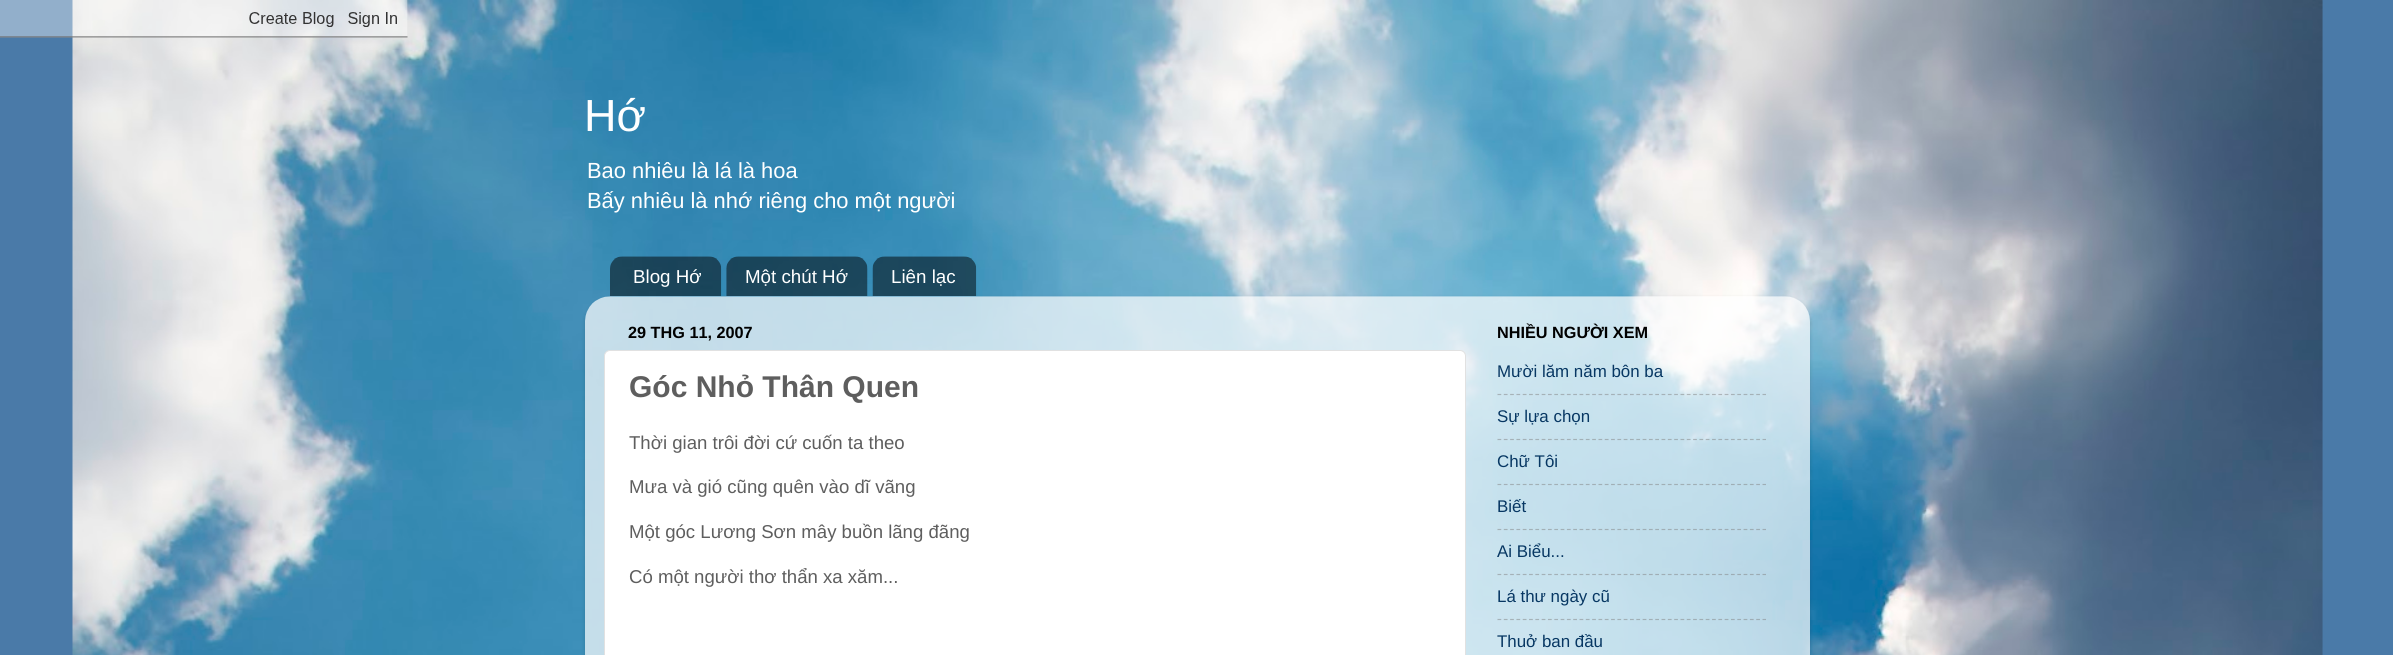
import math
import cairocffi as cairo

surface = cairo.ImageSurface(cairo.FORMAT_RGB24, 2393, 655)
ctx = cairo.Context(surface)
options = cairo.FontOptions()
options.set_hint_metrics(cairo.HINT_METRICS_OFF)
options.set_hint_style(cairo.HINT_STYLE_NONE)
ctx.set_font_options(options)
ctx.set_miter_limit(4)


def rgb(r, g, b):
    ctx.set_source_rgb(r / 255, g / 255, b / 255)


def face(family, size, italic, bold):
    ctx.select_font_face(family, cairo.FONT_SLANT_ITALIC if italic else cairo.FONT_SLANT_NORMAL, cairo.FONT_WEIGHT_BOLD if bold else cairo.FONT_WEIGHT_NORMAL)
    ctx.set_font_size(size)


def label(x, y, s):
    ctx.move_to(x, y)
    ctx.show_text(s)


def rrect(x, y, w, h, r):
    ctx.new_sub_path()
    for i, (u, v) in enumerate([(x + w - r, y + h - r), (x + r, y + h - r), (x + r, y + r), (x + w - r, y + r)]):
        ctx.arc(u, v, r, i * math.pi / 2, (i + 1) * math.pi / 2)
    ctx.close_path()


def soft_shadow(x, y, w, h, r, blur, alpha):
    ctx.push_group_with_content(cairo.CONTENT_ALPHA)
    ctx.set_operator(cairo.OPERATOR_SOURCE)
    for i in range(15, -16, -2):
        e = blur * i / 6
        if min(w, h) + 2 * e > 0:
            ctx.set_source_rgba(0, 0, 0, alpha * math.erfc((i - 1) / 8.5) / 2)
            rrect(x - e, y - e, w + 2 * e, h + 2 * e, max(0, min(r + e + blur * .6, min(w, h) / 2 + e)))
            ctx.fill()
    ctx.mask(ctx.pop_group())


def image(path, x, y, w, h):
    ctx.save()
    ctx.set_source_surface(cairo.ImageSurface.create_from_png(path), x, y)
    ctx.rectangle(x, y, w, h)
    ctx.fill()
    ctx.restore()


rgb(74, 122, 168)
ctx.paint()
image('image0.png', 72, 0, 2251, 655)
image('image1.png', 0, 0, 408, 38)
face('Liberation Sans', 45, 0, 0)
rgb(255, 255, 255)
label(584, 131, 'Hớ')
face('Liberation Sans', 21.9, 0, 0)
label(587, 178, 'Bao nhiêu là lá là hoa')
label(587, 208, 'Bấy nhiêu là nhớ riêng cho một người')
image('image2.png', 610, 256, 112, 40)
face('Liberation Sans', 18.75, 0, 0)
label(633, 283, 'Blog Hớ')
image('image3.png', 726, 256, 142, 40)
label(745, 283, 'Một chút Hớ')
image('image4.png', 872, 256, 105, 40)
label(891, 283, 'Liên lạc')
ctx.save()
ctx.set_fill_rule(cairo.FILL_RULE_EVEN_ODD)
ctx.new_path()
ctx.move_to(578, 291)
ctx.line_to(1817, 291)
ctx.line_to(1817, 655)
ctx.line_to(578, 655)
ctx.close_path()
ctx.move_to(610, 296)
ctx.line_to(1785, 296)
ctx.curve_to(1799, 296, 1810, 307, 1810, 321)
ctx.line_to(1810, 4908)
ctx.line_to(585, 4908)
ctx.line_to(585, 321)
ctx.curve_to(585, 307, 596, 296, 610, 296)
ctx.close_path()
ctx.clip()
rgb(0, 0, 0)
soft_shadow(585, 298, 1225, 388, 25, 2, 0.15)
ctx.restore()
image('image5.png', 585, 296, 1225, 359)
face('Liberation Sans', 16.25, 0, 1)
rgb(0, 0, 0)
label(628, 338, '29 THG 11, 2007')
rgb(255, 255, 255)
rrect(604.5, 350.5, 861, 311, 5.5)
ctx.fill_preserve()
rgb(225, 225, 225)
ctx.set_line_width(1)
ctx.stroke()
face('Liberation Sans', 30, 0, 1)
rgb(94, 94, 94)
label(629, 397, 'Góc Nhỏ Thân Quen')
face('Liberation Sans', 18.6, 0, 0)
label(629, 449, 'Thời gian trôi đời cứ cuốn ta theo')
label(629, 493, 'Mưa và gió cũng quên vào dĩ vãng')
label(629, 538, 'Một góc Lương Sơn mây buồn lãng đãng')
label(629, 583, 'Có một người thơ thẩn xa xăm...')
face('Liberation Sans', 16.25, 0, 1)
rgb(0, 0, 0)
label(1497, 338, 'NHIỀU NGƯỜI XEM')
face('Liberation Sans', 16.9, 0, 0)
rgb(7, 55, 99)
label(1497, 377, 'Mười lăm năm bôn ba')
ctx.new_path()
ctx.move_to(1497.5, 394.5)
ctx.line_to(1766, 394.5)
ctx.set_source_rgba(0.502, 0.502, 0.502, 0.5)
ctx.set_line_width(1.2)
ctx.set_dash([3.75, 2.56])
ctx.stroke()
rgb(7, 55, 99)
label(1497, 422, 'Sự lựa chọn')
ctx.new_path()
ctx.move_to(1497.5, 439.5)
ctx.line_to(1766, 439.5)
ctx.set_source_rgba(0.502, 0.502, 0.502, 0.5)
ctx.stroke()
rgb(7, 55, 99)
label(1497, 467, 'Chữ Tôi')
ctx.new_path()
ctx.move_to(1497.5, 484.5)
ctx.line_to(1766, 484.5)
ctx.set_source_rgba(0.502, 0.502, 0.502, 0.5)
ctx.stroke()
rgb(7, 55, 99)
label(1497, 512, 'Biết')
ctx.new_path()
ctx.move_to(1497.5, 529.5)
ctx.line_to(1766, 529.5)
ctx.set_source_rgba(0.502, 0.502, 0.502, 0.5)
ctx.stroke()
rgb(7, 55, 99)
label(1497, 557, 'Ai Biểu...')
ctx.new_path()
ctx.move_to(1497.5, 574.5)
ctx.line_to(1766, 574.5)
ctx.set_source_rgba(0.502, 0.502, 0.502, 0.5)
ctx.stroke()
rgb(7, 55, 99)
label(1497, 602, 'Lá thư ngày cũ')
ctx.new_path()
ctx.move_to(1497.5, 619.5)
ctx.line_to(1766, 619.5)
ctx.set_source_rgba(0.502, 0.502, 0.502, 0.5)
ctx.stroke()
rgb(7, 55, 99)
label(1497, 647, 'Thuở ban đầu')
surface.write_to_png('render.png')
